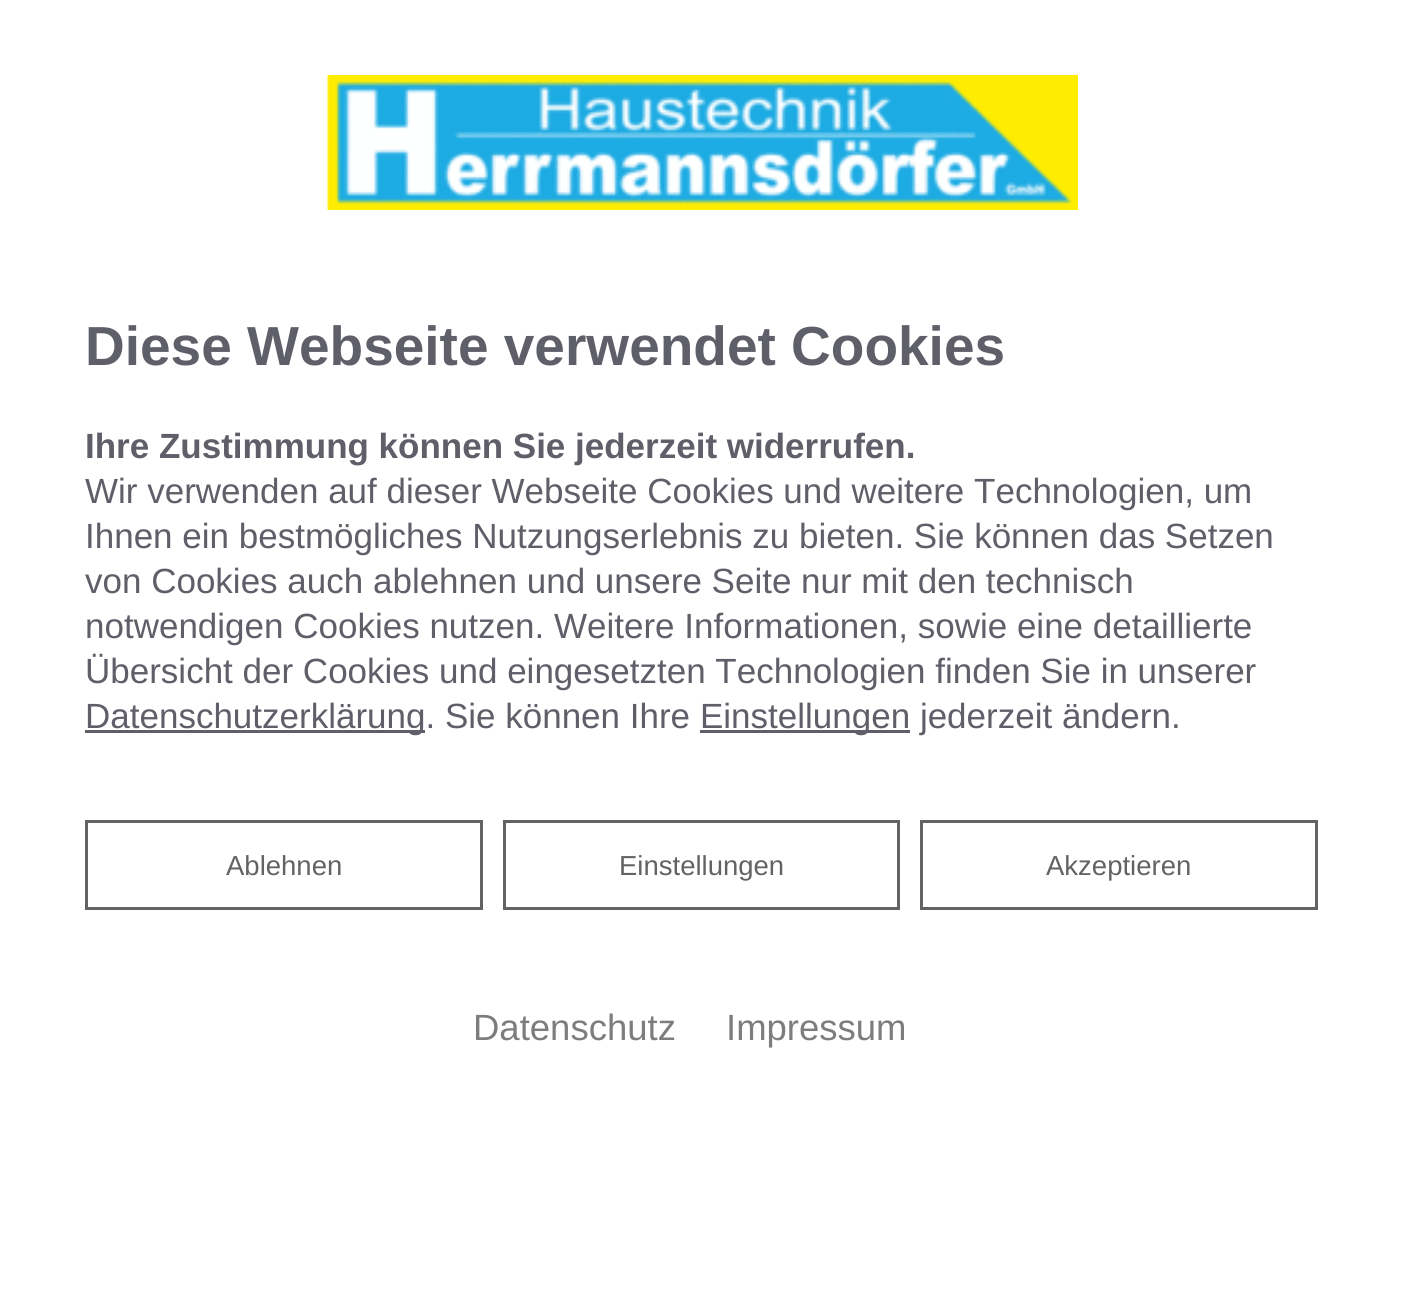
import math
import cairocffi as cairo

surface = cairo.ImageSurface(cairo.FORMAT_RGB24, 1401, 1293)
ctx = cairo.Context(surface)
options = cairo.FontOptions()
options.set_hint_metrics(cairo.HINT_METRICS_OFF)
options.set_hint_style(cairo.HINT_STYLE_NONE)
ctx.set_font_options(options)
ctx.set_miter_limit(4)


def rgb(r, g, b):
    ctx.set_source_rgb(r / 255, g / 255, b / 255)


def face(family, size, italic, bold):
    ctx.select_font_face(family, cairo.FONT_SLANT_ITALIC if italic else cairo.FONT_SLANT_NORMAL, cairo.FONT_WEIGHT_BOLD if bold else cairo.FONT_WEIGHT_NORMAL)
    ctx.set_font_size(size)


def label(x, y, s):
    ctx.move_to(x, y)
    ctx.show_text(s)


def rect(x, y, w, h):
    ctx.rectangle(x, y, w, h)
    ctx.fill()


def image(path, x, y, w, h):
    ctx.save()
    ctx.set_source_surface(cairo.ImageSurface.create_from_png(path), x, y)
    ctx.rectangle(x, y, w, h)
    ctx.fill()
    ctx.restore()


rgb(255, 255, 255)
ctx.paint()
image('image0.png', 326, 75, 752, 135)
face('Liberation Sans', 55, 0, 1)
rgb(95, 95, 106)
label(85, 365, 'Diese Webseite verwendet Cookies')
face('Liberation Sans', 35, 0, 1)
label(85, 458, 'Ihre Zustimmung können Sie jederzeit widerrufen.')
face('Liberation Sans', 35, 0, 0)
label(85, 503, 'Wir verwenden auf dieser Webseite Cookies und weitere Technologien, um')
label(85, 548, 'Ihnen ein bestmögliches Nutzungserlebnis zu bieten. Sie können das Setzen')
label(85, 593, 'von Cookies auch ablehnen und unsere Seite nur mit den technisch')
label(85, 638, 'notwendigen Cookies nutzen. Weitere Informationen, sowie eine detaillierte')
label(85, 683, 'Übersicht der Cookies und eingesetzten Technologien finden Sie in unserer')
rect(85, 730, 340, 3)
label(85, 728, 'Datenschutzerklärung. Sie können Ihre')
rect(700, 730, 210, 3)
label(700, 728, 'Einstellungen jederzeit ändern.')
ctx.rectangle(86.5, 821.5, 395, 87)
rgb(99, 99, 99)
ctx.set_line_width(3)
ctx.stroke()
face('Liberation Sans', 27.5, 0, 0)
label(226, 875, 'Ablehnen')
ctx.rectangle(504.5, 821.5, 394, 87)
ctx.stroke()
label(619, 875, 'Einstellungen')
ctx.rectangle(921.5, 821.5, 395, 87)
ctx.stroke()
label(1046, 875, 'Akzeptieren')
face('Liberation Sans', 36.5, 0, 0)
rgb(125, 125, 125)
label(473, 1040, 'Datenschutz')
label(726, 1040, 'Impressum')
surface.write_to_png('render.png')
